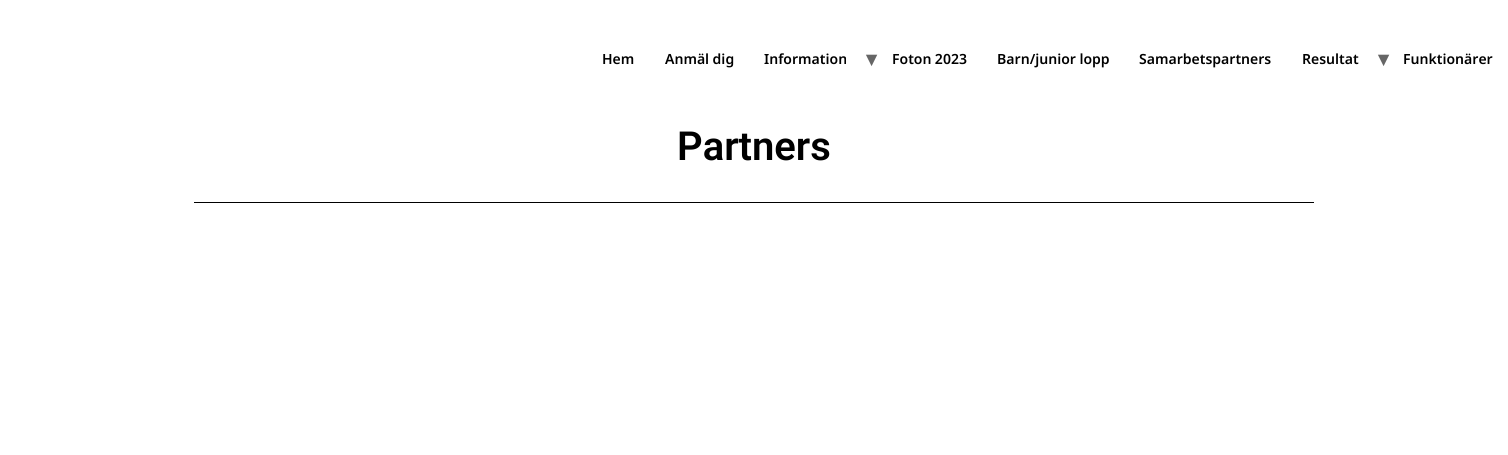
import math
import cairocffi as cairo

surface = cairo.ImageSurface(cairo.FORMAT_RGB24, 1508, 455)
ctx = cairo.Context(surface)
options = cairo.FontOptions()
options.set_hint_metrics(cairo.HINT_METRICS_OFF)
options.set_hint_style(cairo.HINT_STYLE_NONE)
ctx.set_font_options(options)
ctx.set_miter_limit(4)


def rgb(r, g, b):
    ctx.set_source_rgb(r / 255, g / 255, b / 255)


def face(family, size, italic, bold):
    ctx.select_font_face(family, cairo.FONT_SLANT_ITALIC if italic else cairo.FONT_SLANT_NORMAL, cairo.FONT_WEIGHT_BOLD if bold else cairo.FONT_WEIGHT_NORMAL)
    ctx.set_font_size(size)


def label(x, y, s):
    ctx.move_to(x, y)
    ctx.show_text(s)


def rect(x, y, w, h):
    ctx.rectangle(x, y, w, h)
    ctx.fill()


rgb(255, 255, 255)
ctx.paint()
face('Noto Sans Bamum SemiBold', 14, 0, 0)
rgb(0, 0, 0)
label(602, 64, 'Hem')
label(665, 64, 'Anmäl dig')
label(764, 64, 'Information')
face('DejaVu Sans', 21, 0, 1)
rgb(102, 102, 102)
label(866, 66, '▾')
face('Noto Sans Bamum SemiBold', 14, 0, 0)
rgb(0, 0, 0)
label(892, 64, 'Foton 2023')
label(997, 64, 'Barn/junior lopp')
label(1139, 64, 'Samarbetspartners')
label(1302, 64, 'Resultat')
face('DejaVu Sans', 21, 0, 1)
rgb(102, 102, 102)
label(1378, 66, '▾')
face('Noto Sans Bamum SemiBold', 14, 0, 0)
rgb(0, 0, 0)
label(1403, 64, 'Funktionärer')
face('Roboto SemiBold', 40, 0, 0)
label(677, 160, 'Partners')
rect(194, 202, 1120, 1)
surface.write_to_png('render.png')
